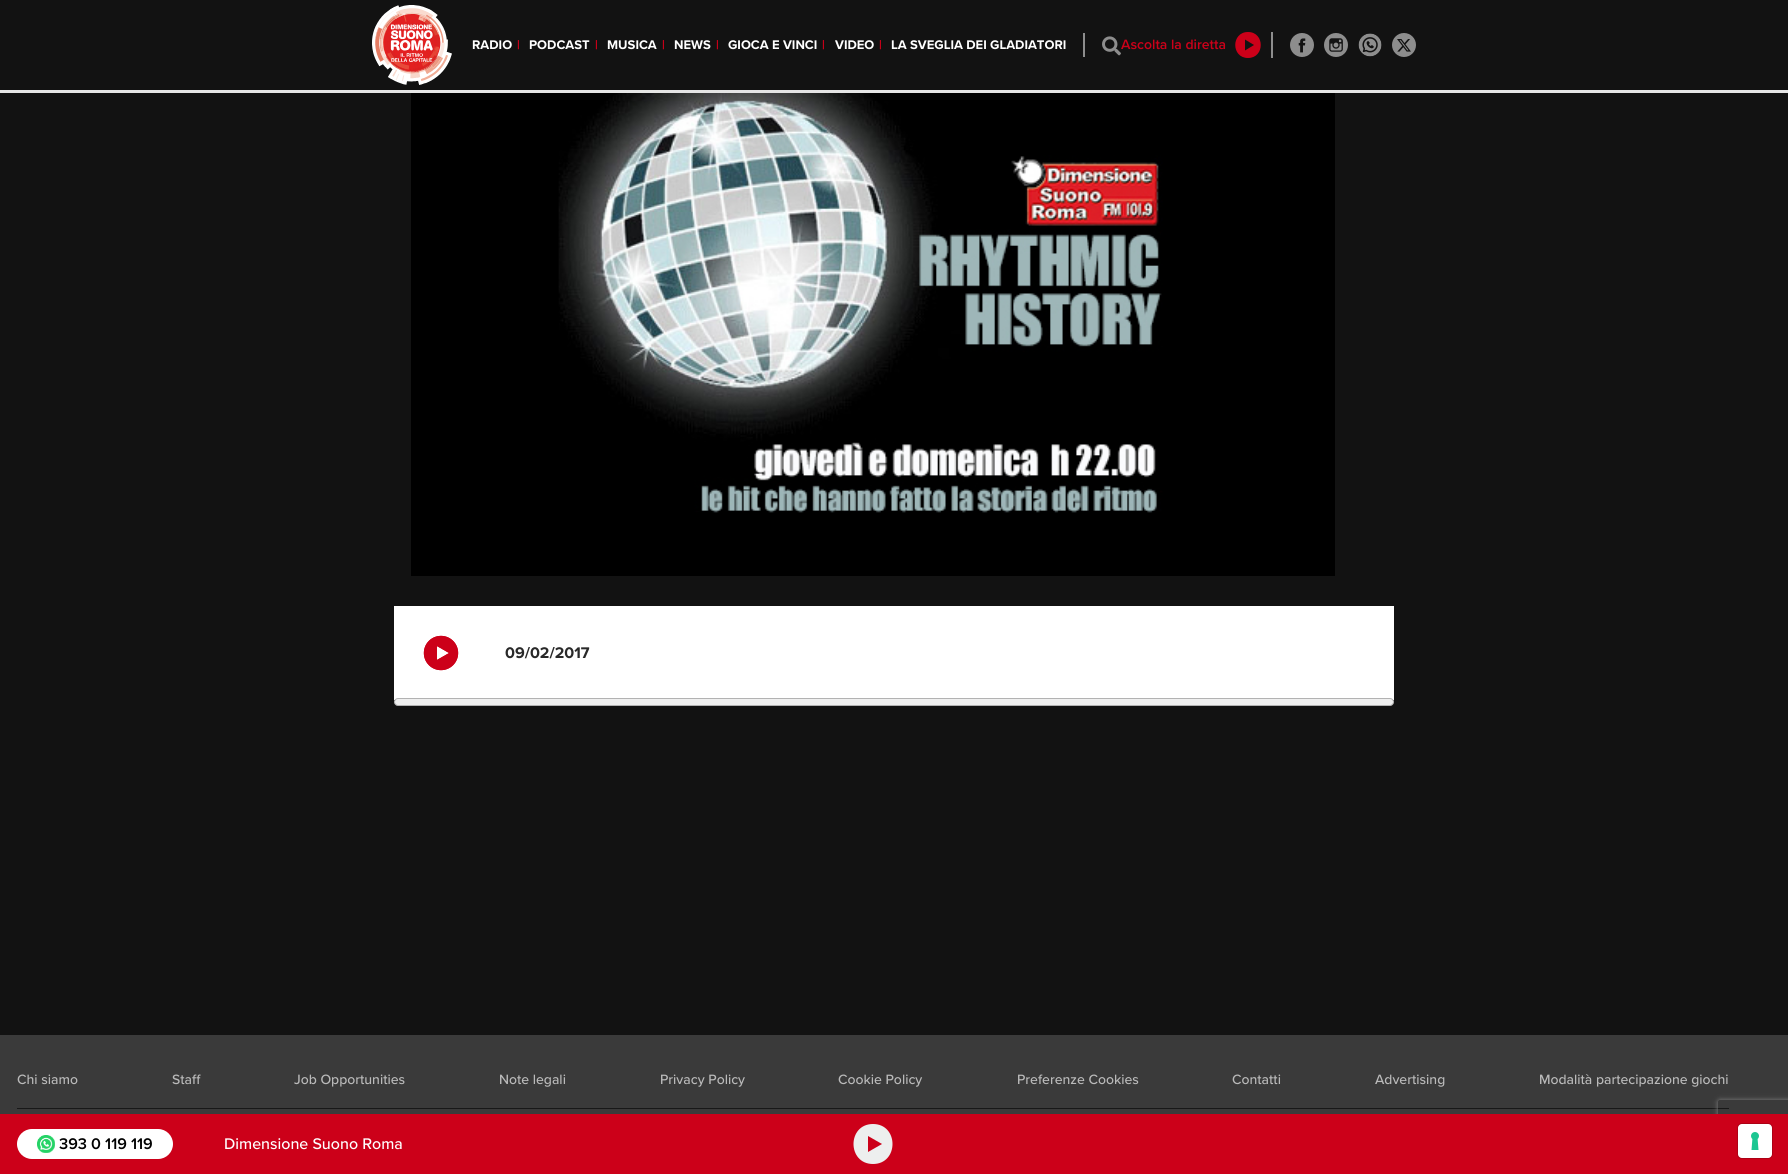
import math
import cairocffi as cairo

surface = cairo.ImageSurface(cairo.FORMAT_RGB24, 1788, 1174)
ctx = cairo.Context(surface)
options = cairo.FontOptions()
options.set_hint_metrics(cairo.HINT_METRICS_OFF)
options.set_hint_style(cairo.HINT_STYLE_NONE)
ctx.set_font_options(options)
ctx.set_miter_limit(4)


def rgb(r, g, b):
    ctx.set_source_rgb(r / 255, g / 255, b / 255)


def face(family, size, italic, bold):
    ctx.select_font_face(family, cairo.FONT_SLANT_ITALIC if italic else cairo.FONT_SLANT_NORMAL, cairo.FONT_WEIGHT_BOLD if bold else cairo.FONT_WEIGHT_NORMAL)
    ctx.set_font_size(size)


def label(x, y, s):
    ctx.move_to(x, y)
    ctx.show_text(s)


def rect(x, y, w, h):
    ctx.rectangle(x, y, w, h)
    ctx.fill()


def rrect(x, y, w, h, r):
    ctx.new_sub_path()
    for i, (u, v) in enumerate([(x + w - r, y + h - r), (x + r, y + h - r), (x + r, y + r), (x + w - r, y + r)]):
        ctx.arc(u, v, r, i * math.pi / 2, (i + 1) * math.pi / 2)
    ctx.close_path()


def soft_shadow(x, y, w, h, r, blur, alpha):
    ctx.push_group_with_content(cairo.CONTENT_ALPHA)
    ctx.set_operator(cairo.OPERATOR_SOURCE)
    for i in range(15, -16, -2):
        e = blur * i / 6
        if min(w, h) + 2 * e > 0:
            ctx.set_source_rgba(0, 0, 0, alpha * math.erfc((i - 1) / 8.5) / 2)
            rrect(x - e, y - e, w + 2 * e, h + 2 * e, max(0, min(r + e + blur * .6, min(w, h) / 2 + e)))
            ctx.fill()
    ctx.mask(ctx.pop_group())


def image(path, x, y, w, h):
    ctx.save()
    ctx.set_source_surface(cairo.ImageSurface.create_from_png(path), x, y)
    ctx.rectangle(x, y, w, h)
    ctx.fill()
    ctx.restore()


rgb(18, 18, 18)
ctx.paint()
rgb(229, 229, 229)
rect(0, 90, 1788, 3)
image('image0.png', 372, 5, 80, 80)
face('Proxima Nova', 13, 0, 1)
rgb(255, 255, 255)
label(472, 49, 'RADIO')
rgb(204, 0, 25)
label(517, 49, '|')
rgb(255, 255, 255)
label(529, 49, 'PODCAST')
rgb(204, 0, 25)
label(595, 49, '|')
rgb(255, 255, 255)
label(607, 49, 'MUSICA')
rgb(204, 0, 25)
label(662, 49, '|')
rgb(255, 255, 255)
label(674, 49, 'NEWS')
rgb(204, 0, 25)
label(716, 49, '|')
rgb(255, 255, 255)
label(728, 49, 'GIOCA E VINCI')
rgb(204, 0, 25)
label(822, 49, '|')
rgb(255, 255, 255)
label(835, 49, 'VIDEO')
rgb(204, 0, 25)
label(879, 49, '|')
rgb(255, 255, 255)
label(891, 49, 'LA SVEGLIA DEI GLADIATORI')
rgb(141, 141, 141)
rect(1083, 33, 2, 24)
image('image1.png', 1102, 36, 19, 20)
rect(1271, 32, 2, 26)
face('Proxima Nova SemiBold', 14, 0, 0)
rgb(204, 0, 25)
label(1121, 49, 'Ascolta la diretta')
ctx.new_path()
ctx.move_to(1248, 32)
ctx.curve_to(1231, 32, 1231, 58, 1248, 58)
ctx.curve_to(1265, 58, 1265, 32, 1248, 32)
ctx.close_path()
ctx.move_to(1245, 50.5)
ctx.line_to(1245, 39.5)
ctx.line_to(1254, 45)
ctx.close_path()
ctx.fill()
image('image2.png', 1290, 33, 24, 24)
image('image3.png', 1324, 33, 24, 24)
image('image4.png', 1358, 33, 24, 24)
image('image5.png', 1392, 33, 24, 24)
image('image6.png', 411, 93, 924, 483)
rgb(255, 255, 255)
rect(394, 606, 1000, 94)
image('image7.png', 423, 635, 36, 36)
face('Proxima Nova', 16, 0, 1)
rgb(41, 41, 41)
label(505, 658, '09/02/2017')
rgb(239, 239, 239)
rrect(394.5, 698.5, 999, 7, 3.5)
ctx.fill_preserve()
rgb(178, 178, 178)
ctx.set_line_width(1)
ctx.stroke()
rgb(58, 58, 58)
rect(0, 1035, 1788, 79)
rgb(24, 24, 24)
rect(17, 1108, 1712, 1)
face('Proxima Nova Medium', 14, 0, 0)
rgb(186, 186, 186)
label(17, 1084, 'Chi siamo')
label(172, 1084, 'Staff')
label(294, 1084, 'Job Opportunities')
label(499, 1084, 'Note legali')
label(660, 1084, 'Privacy Policy')
label(838, 1084, 'Cookie Policy')
label(1017, 1084, 'Preferenze Cookies')
label(1232, 1084, 'Contatti')
label(1375, 1084, 'Advertising')
label(1539, 1084, 'Modalità partecipazione giochi')
ctx.save()
ctx.set_fill_rule(cairo.FILL_RULE_EVEN_ODD)
ctx.new_path()
ctx.move_to(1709, 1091)
ctx.line_to(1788, 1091)
ctx.line_to(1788, 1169)
ctx.line_to(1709, 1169)
ctx.close_path()
ctx.move_to(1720, 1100)
ctx.line_to(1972, 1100)
ctx.curve_to(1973, 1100, 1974, 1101, 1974, 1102)
ctx.line_to(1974, 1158)
ctx.curve_to(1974, 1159, 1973, 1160, 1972, 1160)
ctx.line_to(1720, 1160)
ctx.curve_to(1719, 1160, 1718, 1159, 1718, 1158)
ctx.line_to(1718, 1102)
ctx.curve_to(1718, 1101, 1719, 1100, 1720, 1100)
ctx.close_path()
ctx.clip()
rgb(128, 128, 128)
soft_shadow(1718, 1100, 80, 60, 2, 2.5, 1)
ctx.restore()
rgb(204, 0, 25)
rect(0, 1114, 1788, 60)
rgb(255, 255, 255)
rrect(17, 1129, 156, 30, 15)
ctx.fill()
image('image8.png', 37, 1135, 18, 18)
face('Proxima Nova SemiBold', 16, 0, 0)
rgb(0, 0, 0)
label(59, 1149, '393 0 119 119')
face('Proxima Nova Medium', 16, 0, 0)
rgb(255, 255, 255)
label(224, 1149, 'Dimensione Suono Roma')
rgb(237, 239, 238)
ctx.new_path()
ctx.move_to(873, 1124)
ctx.curve_to(847, 1124, 847, 1164, 873, 1164)
ctx.curve_to(899, 1164, 899, 1124, 873, 1124)
ctx.close_path()
ctx.move_to(868, 1152)
ctx.line_to(868, 1136)
ctx.line_to(882, 1144)
ctx.close_path()
ctx.fill()
rrect(1737.5, 1123.5, 35, 35, 4.5)
rgb(173, 0, 21)
ctx.stroke()
rgb(255, 255, 255)
rrect(1738, 1124, 34, 34, 4)
ctx.fill()
image('image9.png', 1751, 1132, 8, 18)
surface.write_to_png('render.png')
